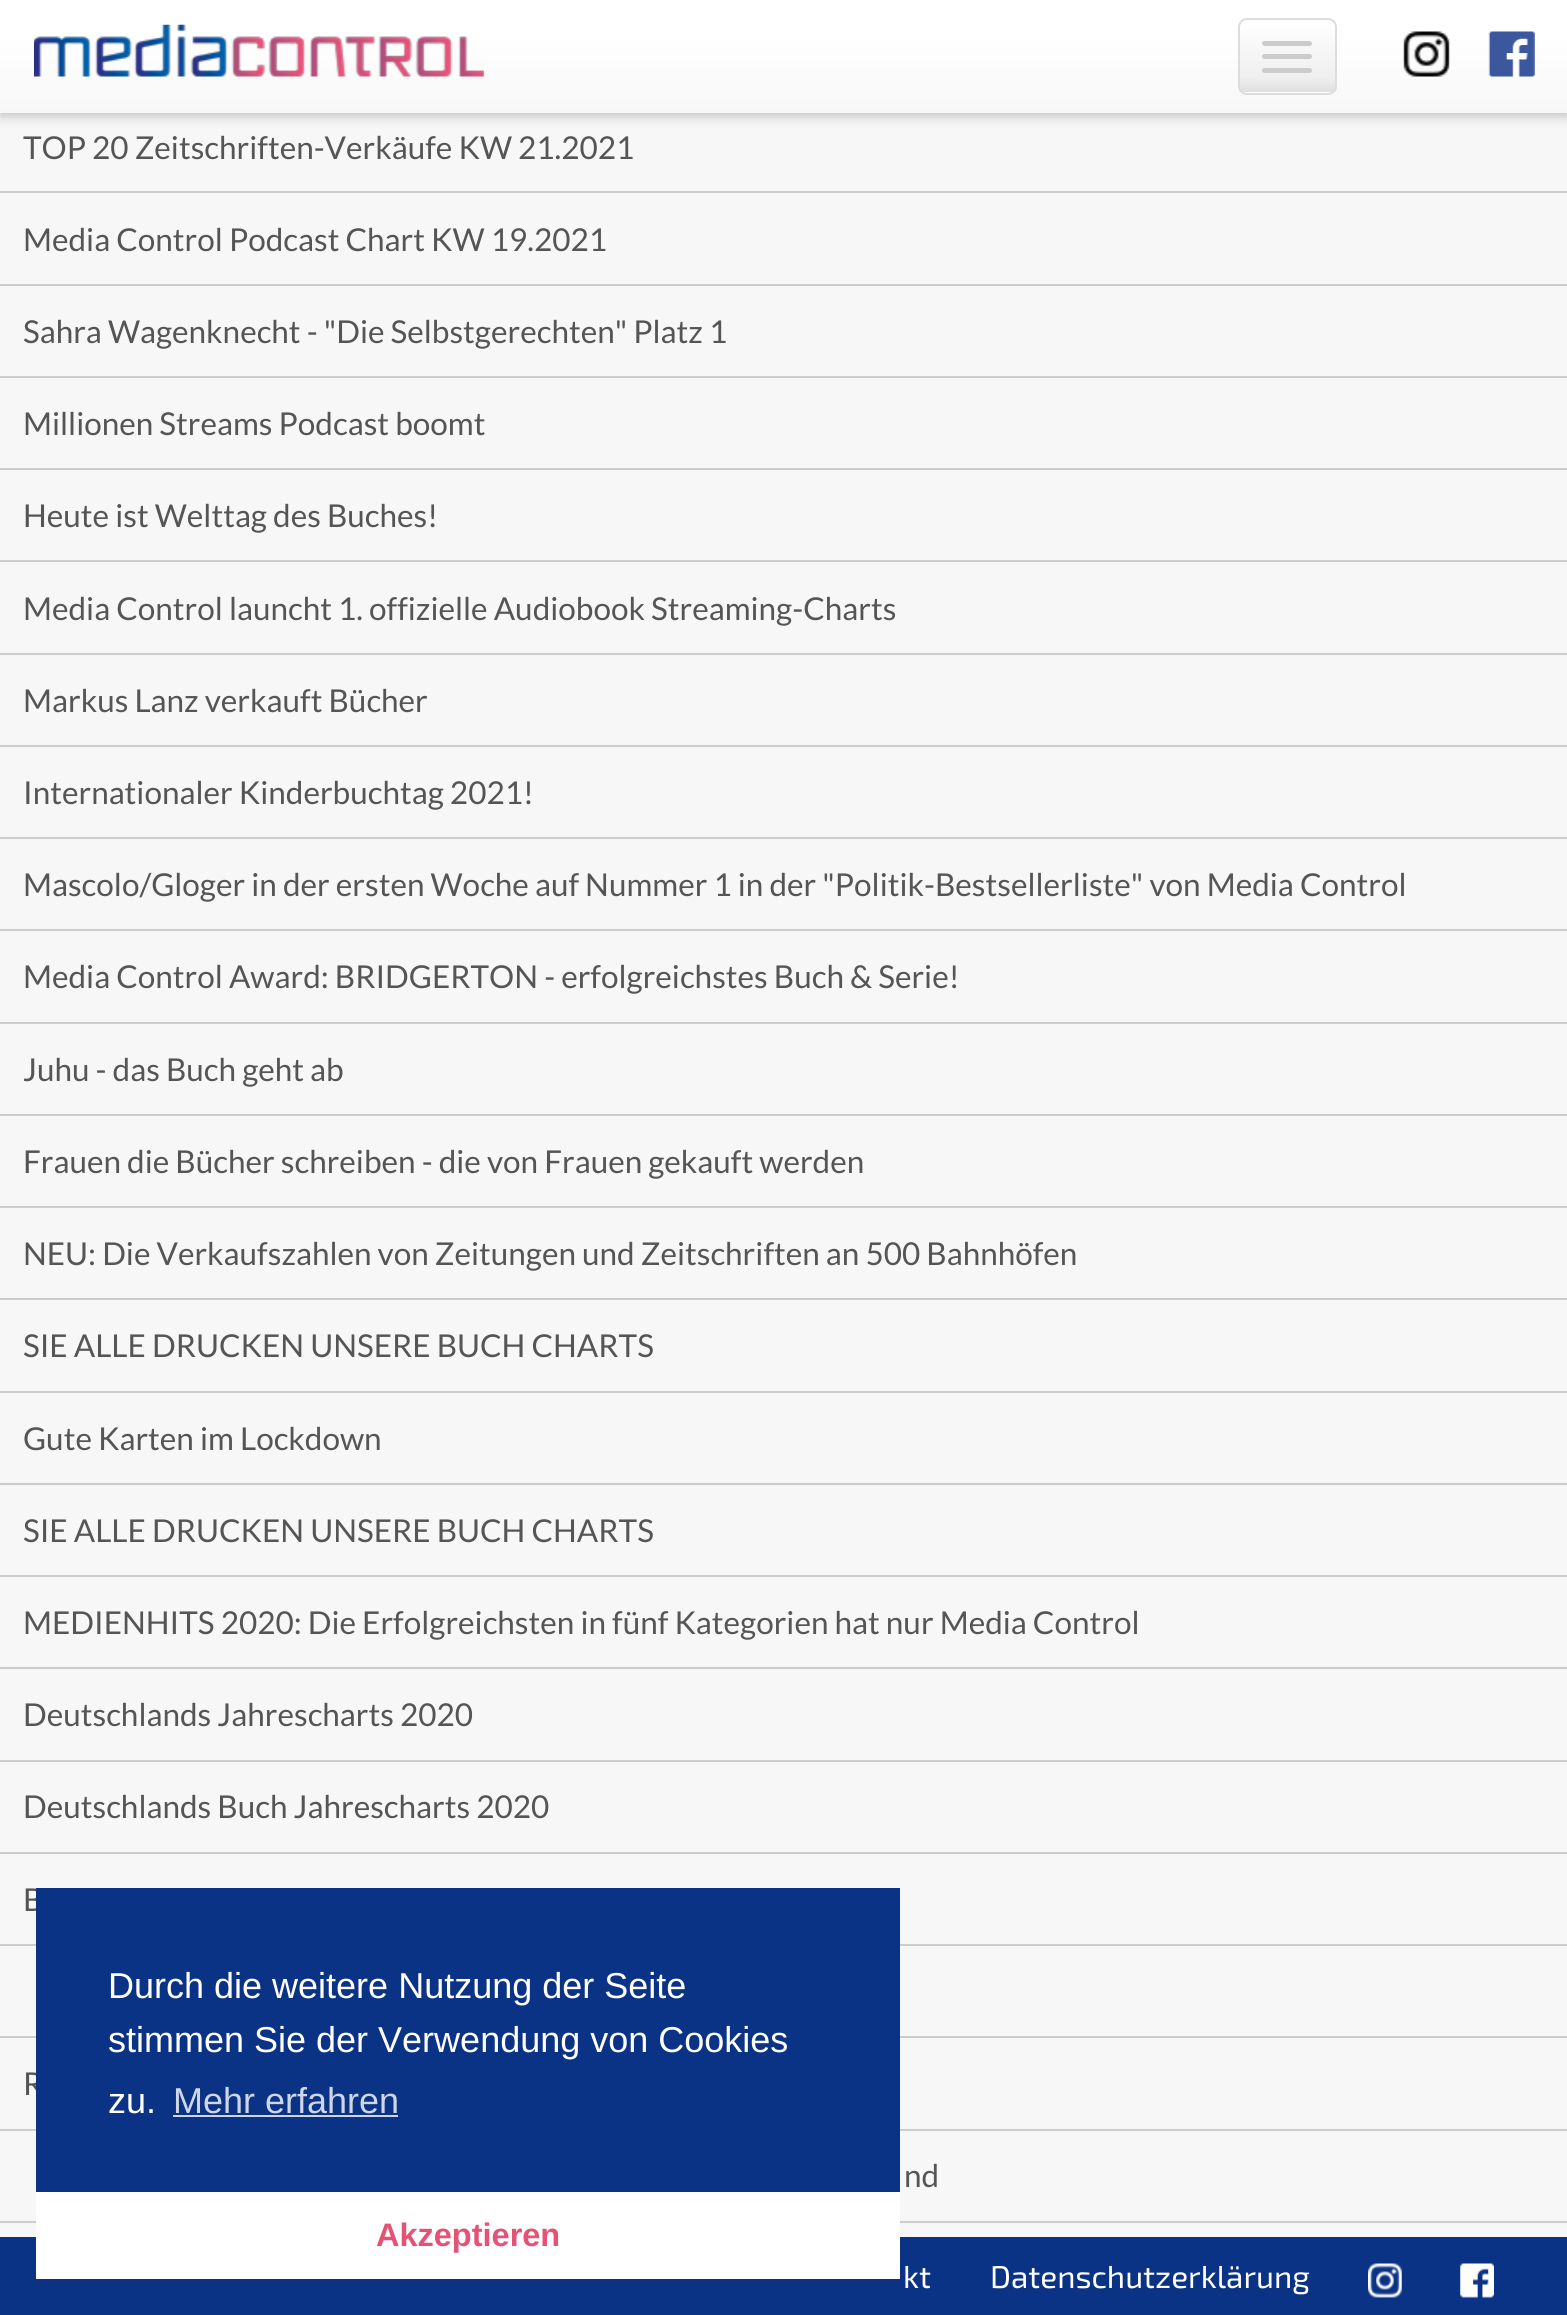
import math
import cairocffi as cairo

surface = cairo.ImageSurface(cairo.FORMAT_RGB24, 1567, 2315)
ctx = cairo.Context(surface)
options = cairo.FontOptions()
options.set_hint_metrics(cairo.HINT_METRICS_OFF)
options.set_hint_style(cairo.HINT_STYLE_NONE)
ctx.set_font_options(options)
ctx.set_miter_limit(4)


def rgb(r, g, b):
    ctx.set_source_rgb(r / 255, g / 255, b / 255)


def face(family, size, italic, bold):
    ctx.select_font_face(family, cairo.FONT_SLANT_ITALIC if italic else cairo.FONT_SLANT_NORMAL, cairo.FONT_WEIGHT_BOLD if bold else cairo.FONT_WEIGHT_NORMAL)
    ctx.set_font_size(size)


def label(x, y, s):
    ctx.move_to(x, y)
    ctx.show_text(s)


def rect(x, y, w, h):
    ctx.rectangle(x, y, w, h)
    ctx.fill()


def rrect(x, y, w, h, r):
    ctx.new_sub_path()
    for i, (u, v) in enumerate([(x + w - r, y + h - r), (x + r, y + h - r), (x + r, y + r), (x + w - r, y + r)]):
        ctx.arc(u, v, r, i * math.pi / 2, (i + 1) * math.pi / 2)
    ctx.close_path()


def soft_shadow(x, y, w, h, r, blur, alpha):
    ctx.push_group_with_content(cairo.CONTENT_ALPHA)
    ctx.set_operator(cairo.OPERATOR_SOURCE)
    for i in range(15, -16, -2):
        e = blur * i / 6
        if min(w, h) + 2 * e > 0:
            ctx.set_source_rgba(0, 0, 0, alpha * math.erfc((i - 1) / 8.5) / 2)
            rrect(x - e, y - e, w + 2 * e, h + 2 * e, max(0, min(r + e + blur * .6, min(w, h) / 2 + e)))
            ctx.fill()
    ctx.mask(ctx.pop_group())


def image(path, x, y, w, h):
    ctx.save()
    ctx.set_source_surface(cairo.ImageSurface.create_from_png(path), x, y)
    ctx.rectangle(x, y, w, h)
    ctx.fill()
    ctx.restore()


rgb(247, 247, 247)
ctx.paint()
rgb(0, 0, 0)
soft_shadow(0, 5, 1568, 112, 0, 5.5, 0.2)
gradient = cairo.LinearGradient(784, 113, 784, 0)
gradient.add_color_stop_rgba(0, 0.969, 0.969, 0.969, 1)
gradient.add_color_stop_rgba(0.7, 1, 1, 1, 1)
gradient.add_color_stop_rgba(1, 1, 1, 1, 1)
ctx.set_source(gradient)
rect(0, 0, 1567, 113)
image('image0.png', 34, 24, 450, 53)
ctx.save()
rrect(1238, 18, 99, 77, 9)
ctx.clip()
gradient = cairo.LinearGradient(1287, 92, 1287, 20)
gradient.add_color_stop_rgba(0, 0.875, 0.875, 0.875, 1)
gradient.add_color_stop_rgba(0.2, 0.937, 0.937, 0.937, 1)
gradient.add_color_stop_rgba(1, 1, 1, 1, 1)
ctx.set_source(gradient)
rect(1238, 20, 99, 72)
gradient = cairo.LinearGradient(1287, 164, 1287, 92)
gradient.add_color_stop_rgba(0, 0.875, 0.875, 0.875, 1)
gradient.add_color_stop_rgba(0.2, 0.937, 0.937, 0.937, 1)
gradient.add_color_stop_rgba(1, 1, 1, 1, 1)
ctx.set_source(gradient)
rect(1238, 92, 99, 3)
ctx.restore()
rrect(1239, 19, 97, 75, 8)
rgb(221, 221, 221)
ctx.stroke()
rgb(204, 204, 204)
rrect(1262, 41, 50, 5, 2.5)
ctx.fill()
rrect(1262, 54, 50, 5, 2.5)
ctx.fill()
rrect(1262, 68, 50, 5, 2.5)
ctx.fill()
image('image1.png', 1403, 31, 47, 46)
image('image2.png', 1488, 31, 47, 46)
rect(0, 191, 1567, 2)
face('Lato', 31.5, 0, 0)
rgb(85, 85, 85)
label(23, 159, 'TOP 20 Zeitschriften-Verkäufe KW 21.2021')
rgb(204, 204, 204)
rect(0, 284, 1567, 2)
rgb(85, 85, 85)
label(23, 251, 'Media Control Podcast Chart KW 19.2021')
rgb(204, 204, 204)
rect(0, 376, 1567, 2)
rgb(85, 85, 85)
label(23, 343, 'Sahra Wagenknecht - "Die Selbstgerechten" Platz 1')
rgb(204, 204, 204)
rect(0, 468, 1567, 2)
rgb(85, 85, 85)
label(23, 435, 'Millionen Streams Podcast boomt')
rgb(204, 204, 204)
rect(0, 560, 1567, 2)
rgb(85, 85, 85)
label(23, 527, 'Heute ist Welttag des Buches!')
rgb(204, 204, 204)
rect(0, 653, 1567, 2)
rgb(85, 85, 85)
label(23, 620, 'Media Control launcht 1. offizielle Audiobook Streaming-Charts')
rgb(204, 204, 204)
rect(0, 745, 1567, 2)
rgb(85, 85, 85)
label(23, 712, 'Markus Lanz verkauft Bücher')
rgb(204, 204, 204)
rect(0, 837, 1567, 2)
rgb(85, 85, 85)
label(23, 804, 'Internationaler Kinderbuchtag 2021!')
rgb(204, 204, 204)
rect(0, 929, 1567, 2)
rgb(85, 85, 85)
label(23, 896, 'Mascolo/Gloger in der ersten Woche auf Nummer 1 in der "Politik-Bestsellerliste" von Media Control')
rgb(204, 204, 204)
rect(0, 1022, 1567, 2)
rgb(85, 85, 85)
label(23, 988, 'Media Control Award: BRIDGERTON - erfolgreichstes Buch & Serie!')
rgb(204, 204, 204)
rect(0, 1114, 1567, 2)
rgb(85, 85, 85)
label(23, 1081, 'Juhu - das Buch geht ab')
rgb(204, 204, 204)
rect(0, 1206, 1567, 2)
rgb(85, 85, 85)
label(23, 1173, 'Frauen die Bücher schreiben - die von Frauen gekauft werden')
rgb(204, 204, 204)
rect(0, 1298, 1567, 2)
rgb(85, 85, 85)
label(23, 1265, 'NEU: Die Verkaufszahlen von Zeitungen und Zeitschriften an 500 Bahnhöfen')
rgb(204, 204, 204)
rect(0, 1391, 1567, 2)
rgb(85, 85, 85)
label(23, 1357, 'SIE ALLE DRUCKEN UNSERE BUCH CHARTS')
rgb(204, 204, 204)
rect(0, 1483, 1567, 2)
rgb(85, 85, 85)
label(23, 1450, 'Gute Karten im Lockdown')
rgb(204, 204, 204)
rect(0, 1575, 1567, 2)
rgb(85, 85, 85)
label(23, 1542, 'SIE ALLE DRUCKEN UNSERE BUCH CHARTS')
rgb(204, 204, 204)
rect(0, 1667, 1567, 2)
rgb(85, 85, 85)
label(23, 1634, 'MEDIENHITS 2020: Die Erfolgreichsten in fünf Kategorien hat nur Media Control')
rgb(204, 204, 204)
rect(0, 1760, 1567, 2)
rgb(85, 85, 85)
label(23, 1726, 'Deutschlands Jahrescharts 2020')
rgb(204, 204, 204)
rect(0, 1852, 1567, 2)
rgb(85, 85, 85)
label(23, 1818, 'Deutschlands Buch Jahrescharts 2020')
rgb(204, 204, 204)
rect(0, 1944, 1567, 2)
rgb(85, 85, 85)
label(23, 1911, 'B')
rgb(204, 204, 204)
rect(0, 2036, 1567, 2)
rect(0, 2129, 1567, 2)
rgb(85, 85, 85)
label(23, 2095, 'R')
rgb(204, 204, 204)
rect(0, 2221, 1567, 2)
rgb(85, 85, 85)
label(904, 2187, 'nd')
rgb(11, 51, 133)
rect(36, 1888, 864, 304)
face('Liberation Sans', 36, 0, 0)
rgb(255, 255, 255)
label(108, 1998, 'Durch die weitere Nutzung der Seite')
label(108, 2052, 'stimmen Sie der Verwendung von Cookies')
label(108, 2113, 'zu.')
rgb(206, 214, 231)
label(173, 2113, 'Mehr erfahren')
rect(173, 2115, 225, 2)
rgb(11, 51, 133)
rect(0, 2237, 1567, 78)
rgb(255, 255, 255)
rect(36, 2192, 864, 87)
face('Liberation Sans', 32.5, 0, 1)
rgb(229, 82, 118)
label(376, 2246, 'Akzeptieren')
face('Exo 2', 31.5, 0, 0)
rgb(255, 255, 255)
label(903, 2288, 'kt')
label(990, 2288, 'Datenschutzerklärung')
image('image3.png', 1368, 2263, 34, 35)
image('image4.png', 1460, 2263, 34, 35)
surface.write_to_png('render.png')
